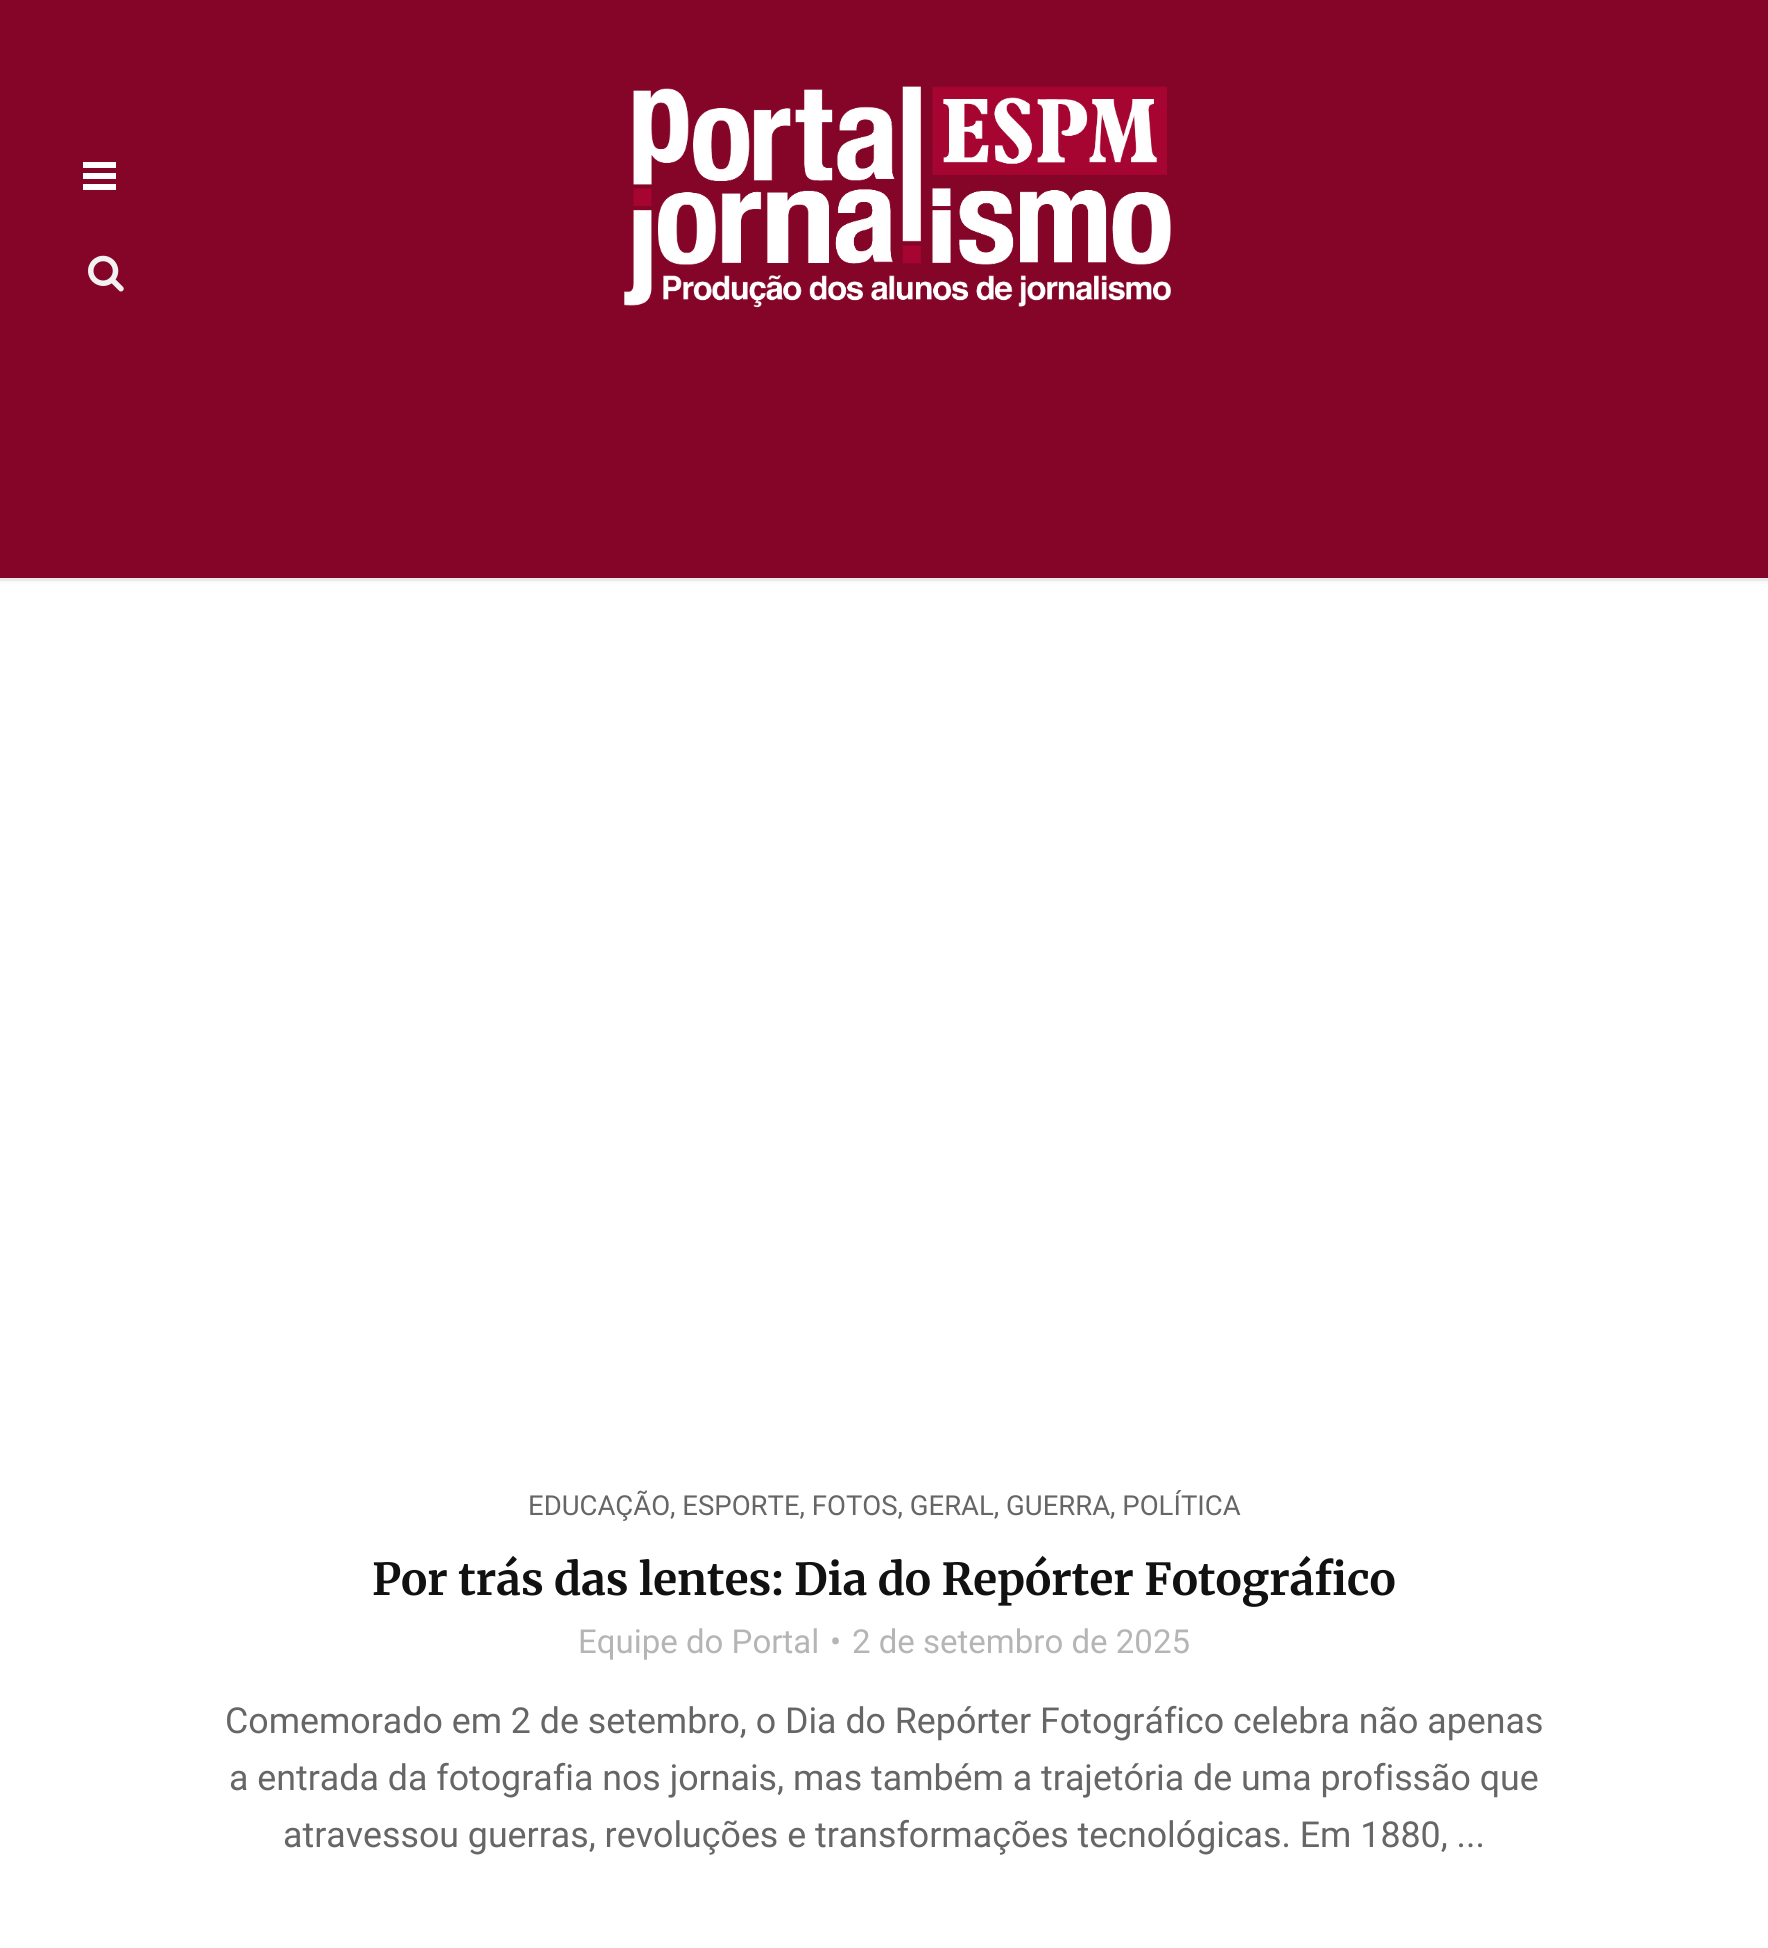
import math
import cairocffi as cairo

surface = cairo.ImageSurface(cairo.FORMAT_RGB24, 1768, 1948)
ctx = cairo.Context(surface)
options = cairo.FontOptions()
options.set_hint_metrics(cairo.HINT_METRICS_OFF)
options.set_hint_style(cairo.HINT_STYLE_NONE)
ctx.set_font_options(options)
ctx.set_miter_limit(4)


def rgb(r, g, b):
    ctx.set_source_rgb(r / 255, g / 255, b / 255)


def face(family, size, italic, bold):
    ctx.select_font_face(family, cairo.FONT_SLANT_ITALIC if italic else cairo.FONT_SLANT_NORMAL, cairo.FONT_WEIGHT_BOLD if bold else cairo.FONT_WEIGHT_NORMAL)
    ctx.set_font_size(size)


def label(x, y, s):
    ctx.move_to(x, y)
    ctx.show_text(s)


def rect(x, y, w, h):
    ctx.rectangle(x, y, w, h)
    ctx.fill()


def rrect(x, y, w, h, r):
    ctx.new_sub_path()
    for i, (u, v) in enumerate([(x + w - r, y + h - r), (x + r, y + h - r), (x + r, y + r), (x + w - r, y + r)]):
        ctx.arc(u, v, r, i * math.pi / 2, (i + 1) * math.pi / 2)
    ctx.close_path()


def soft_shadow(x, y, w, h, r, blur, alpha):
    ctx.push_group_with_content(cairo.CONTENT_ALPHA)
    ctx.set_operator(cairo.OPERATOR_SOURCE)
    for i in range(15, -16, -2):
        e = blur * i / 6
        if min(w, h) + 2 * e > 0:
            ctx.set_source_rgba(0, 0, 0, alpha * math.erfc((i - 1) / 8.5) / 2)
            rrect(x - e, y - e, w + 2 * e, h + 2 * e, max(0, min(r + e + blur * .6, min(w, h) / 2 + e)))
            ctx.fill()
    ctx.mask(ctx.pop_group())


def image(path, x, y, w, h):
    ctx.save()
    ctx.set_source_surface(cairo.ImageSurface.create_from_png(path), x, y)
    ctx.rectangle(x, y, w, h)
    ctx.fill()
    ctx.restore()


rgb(255, 255, 255)
ctx.paint()
rgb(234, 234, 234)
rect(0, 578, 1768, 3)
rgb(234, 234, 234)
soft_shadow(0, 3, 1768, 577, 0, 3, 1)
rgb(132, 5, 39)
rect(0, 0, 1768, 578)
rgb(255, 255, 255)
rect(83, 162, 33, 6)
rect(83, 173, 33, 6)
rect(83, 184, 33, 6)
image('image0.png', 624, 86, 547, 222)
image('image1.png', 88, 255, 36, 37)
face('Roboto', 27.5, 0, 0)
rgb(102, 102, 102)
label(528, 1515, 'EDUCAÇÃO, ESPORTE, FOTOS, GERAL, GUERRA, POLÍTICA')
face('Merriweather Light', 44, 0, 0)
rgb(17, 17, 17)
label(372, 1595, 'Por trás das lentes: Dia do Repórter Fotográfico')
face('Roboto', 33, 0, 0)
rgb(181, 181, 181)
label(578, 1653, 'Equipe do Portal')
label(830, 1653, '•')
label(852, 1653, '2 de setembro de 2025')
face('Roboto', 35.75, 0, 0)
rgb(102, 102, 102)
label(225, 1733, 'Comemorado em 2 de setembro, o Dia do Repórter Fotográfico celebra não apenas')
label(229, 1790, 'a entrada da fotografia nos jornais, mas também a trajetória de uma profissão que')
label(283, 1847, 'atravessou guerras, revoluções e transformações tecnológicas. Em 1880, ...')
surface.write_to_png('render.png')
